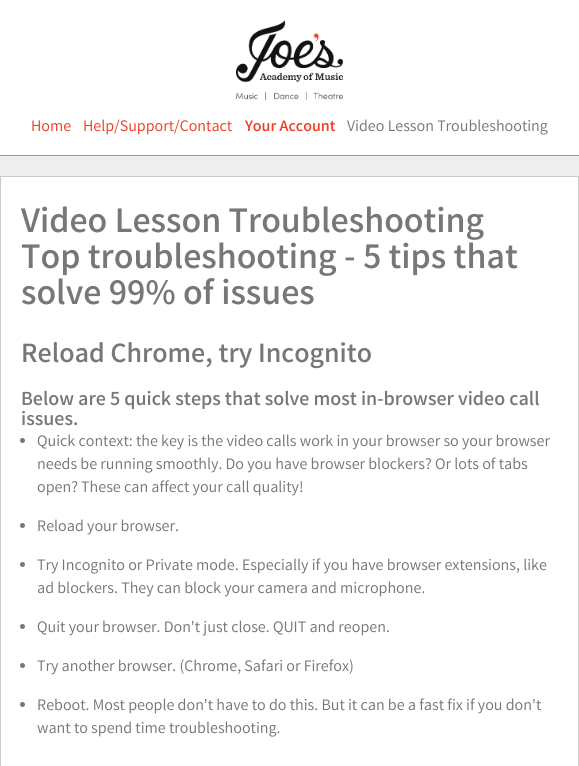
import math
import cairocffi as cairo

surface = cairo.ImageSurface(cairo.FORMAT_RGB24, 579, 766)
ctx = cairo.Context(surface)
options = cairo.FontOptions()
options.set_hint_metrics(cairo.HINT_METRICS_OFF)
options.set_hint_style(cairo.HINT_STYLE_NONE)
ctx.set_font_options(options)
ctx.set_miter_limit(4)


def rgb(r, g, b):
    ctx.set_source_rgb(r / 255, g / 255, b / 255)


def face(family, size, italic, bold):
    ctx.select_font_face(family, cairo.FONT_SLANT_ITALIC if italic else cairo.FONT_SLANT_NORMAL, cairo.FONT_WEIGHT_BOLD if bold else cairo.FONT_WEIGHT_NORMAL)
    ctx.set_font_size(size)


def label(x, y, s):
    ctx.move_to(x, y)
    ctx.show_text(s)


def rect(x, y, w, h):
    ctx.rectangle(x, y, w, h)
    ctx.fill()


def image(path, x, y, w, h):
    ctx.save()
    ctx.set_source_surface(cairo.ImageSurface.create_from_png(path), x, y)
    ctx.rectangle(x, y, w, h)
    ctx.fill()
    ctx.restore()


rgb(238, 238, 238)
ctx.paint()
rgb(255, 255, 255)
rect(0, 0, 579, 155)
rgb(153, 153, 153)
rect(0, 155, 579, 1)
image('image0.png', 236, 20, 107, 80)
face('Varta', 16, 0, 0)
rgb(238, 62, 37)
label(31, 131, 'Home')
label(83, 131, 'Help/Support/Contact')
face('Varta', 16, 0, 1)
label(245, 131, 'Your Account')
face('Varta', 16, 0, 0)
rgb(119, 119, 119)
label(347, 131, 'Video Lesson Troubleshooting')
rgb(255, 255, 255)
ctx.rectangle(0.5, 176.5, 578, 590)
ctx.fill_preserve()
rgb(204, 204, 204)
ctx.set_line_width(1)
ctx.stroke()
face('Varta', 36, 0, 1)
rgb(119, 119, 119)
label(21, 232, 'Video Lesson Troubleshooting')
label(21, 268, 'Top troubleshooting - 5 tips that')
label(21, 304, 'solve 99% of issues')
face('Varta', 28, 0, 1)
label(21, 362, 'Reload Chrome, try Incognito')
face('Varta', 20, 0, 1)
label(21, 405, 'Below are 5 quick steps that solve most in-browser video call')
label(21, 425, 'issues.')
ctx.new_path()
ctx.arc(22.5, 440.5, 2.5, 0, 2 * math.pi)
ctx.fill()
face('Varta', 16, 0, 0)
label(37, 446, 'Quick context: the key is the video calls work in your browser so your browser')
label(37, 469, 'needs be running smoothly. Do you have browser blockers? Or lots of tabs')
label(37, 492, 'open? These can affect your call quality!')
ctx.new_path()
ctx.arc(22.5, 525.5, 2.5, 0, 2 * math.pi)
ctx.fill()
label(37, 531, 'Reload your browser.')
ctx.new_path()
ctx.arc(22.5, 564.5, 2.5, 0, 2 * math.pi)
ctx.fill()
label(37, 570, 'Try Incognito or Private mode. Especially if you have browser extensions, like')
label(37, 593, 'ad blockers. They can block your camera and microphone.')
ctx.new_path()
ctx.arc(22.5, 626.5, 2.5, 0, 2 * math.pi)
ctx.fill()
label(37, 632, 'Quit your browser. Don\'t just close. QUIT and reopen.')
ctx.new_path()
ctx.arc(22.5, 665.5, 2.5, 0, 2 * math.pi)
ctx.fill()
label(37, 671, 'Try another browser. (Chrome, Safari or Firefox)')
ctx.new_path()
ctx.arc(22.5, 704.5, 2.5, 0, 2 * math.pi)
ctx.fill()
label(37, 710, 'Reboot. Most people don\'t have to do this. But it can be a fast fix if you don\'t')
label(37, 733, 'want to spend time troubleshooting.')
surface.write_to_png('render.png')
